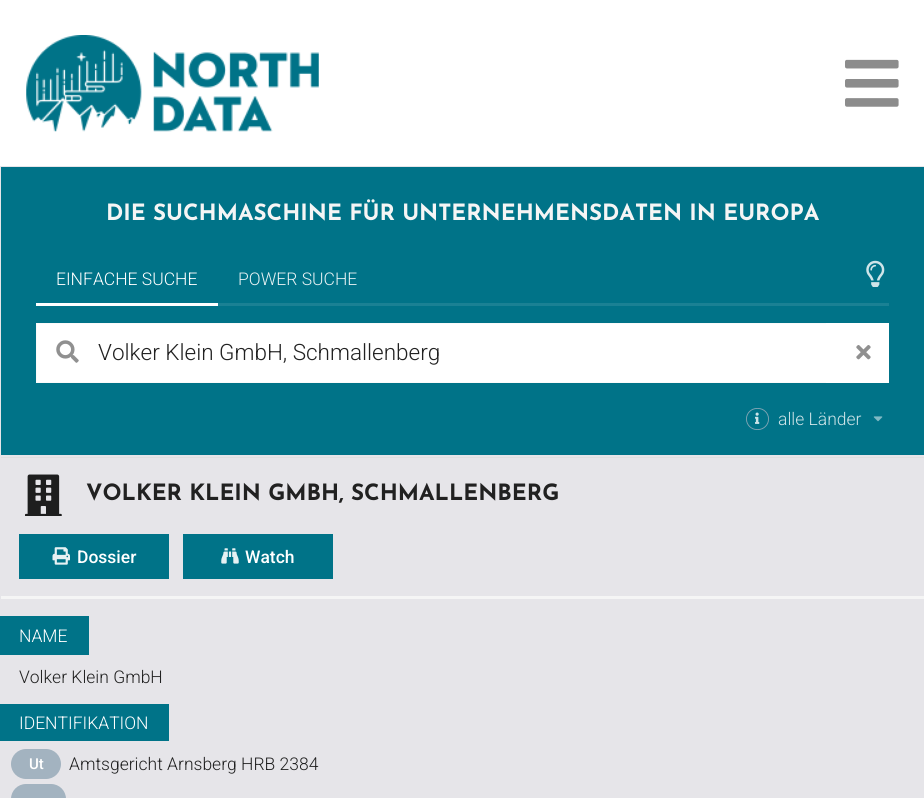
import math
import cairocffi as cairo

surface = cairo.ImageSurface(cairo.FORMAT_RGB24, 924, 798)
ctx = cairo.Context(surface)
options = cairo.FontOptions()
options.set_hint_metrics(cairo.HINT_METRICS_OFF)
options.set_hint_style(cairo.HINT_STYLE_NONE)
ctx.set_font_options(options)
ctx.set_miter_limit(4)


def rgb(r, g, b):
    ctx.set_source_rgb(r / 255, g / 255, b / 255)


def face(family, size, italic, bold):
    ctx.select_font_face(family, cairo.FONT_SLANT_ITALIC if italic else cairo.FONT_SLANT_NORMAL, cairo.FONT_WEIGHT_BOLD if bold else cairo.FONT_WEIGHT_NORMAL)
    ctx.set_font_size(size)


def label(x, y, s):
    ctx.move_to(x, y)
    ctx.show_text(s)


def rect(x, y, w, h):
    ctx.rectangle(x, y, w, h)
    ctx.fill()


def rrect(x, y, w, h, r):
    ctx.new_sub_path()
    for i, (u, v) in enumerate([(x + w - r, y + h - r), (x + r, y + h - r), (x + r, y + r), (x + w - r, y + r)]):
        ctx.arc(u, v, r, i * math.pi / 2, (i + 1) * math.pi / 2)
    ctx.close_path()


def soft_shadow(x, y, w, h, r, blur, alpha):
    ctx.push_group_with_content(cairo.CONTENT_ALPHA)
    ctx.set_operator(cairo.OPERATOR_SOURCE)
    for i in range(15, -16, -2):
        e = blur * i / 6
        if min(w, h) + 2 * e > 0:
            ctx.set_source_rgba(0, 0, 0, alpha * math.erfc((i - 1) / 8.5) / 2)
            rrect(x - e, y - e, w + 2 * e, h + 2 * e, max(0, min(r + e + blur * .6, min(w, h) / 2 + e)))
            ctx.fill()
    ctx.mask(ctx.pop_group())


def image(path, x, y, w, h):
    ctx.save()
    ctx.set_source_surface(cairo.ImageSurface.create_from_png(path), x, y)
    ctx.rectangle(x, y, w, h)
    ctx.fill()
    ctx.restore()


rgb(245, 245, 245)
ctx.paint()
rgb(255, 255, 255)
rect(0, 0, 924, 166)
image('image0.png', 26, 35, 293, 97)
image('image1.png', 845, 59, 54, 48)
rgb(34, 36, 38)
soft_shadow(0, 168, 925, 290, 0, 1, 0.15)
rgb(0, 115, 136)
ctx.rectangle(0.5, 166.5, 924, 289)
ctx.fill_preserve()
rgb(230, 229, 233)
ctx.set_line_width(1)
ctx.stroke()
face('Josefin Sans Thin', 22.4, 0, 0)
rgb(245, 245, 245)
label(106, 220, 'DIE SUCHMASCHINE FÜR UNTERNEHMENSDATEN IN EUROPA')
rgb(26, 129, 148)
rect(218, 303, 671, 3)
rgb(255, 255, 255)
rect(36, 303, 182, 3)
face('Roboto Light', 17.5, 0, 0)
label(56, 285, 'EINFACHE SUCHE')
rgb(230, 241, 243)
label(238, 285, 'POWER SUCHE')
image('image2.png', 866, 260, 19, 27)
rgb(255, 255, 255)
rect(37, 324, 789, 58)
ctx.rectangle(36.5, 323.5, 852, 59)
rgb(250, 250, 250)
ctx.stroke()
image('image3.png', 56, 340, 23, 23)
face('Roboto Light', 22.5, 0, 0)
rgb(33, 33, 33)
label(98, 360, 'Volker Klein GmbH, Schmallenberg')
rgb(255, 255, 255)
rect(826, 323, 63, 60)
image('image4.png', 856, 345, 15, 15)
rrect(746.45, 408.45, 22.1, 21.1, 10.55)
rgb(130, 166, 181)
ctx.set_line_width(0.9)
ctx.stroke()
image('image5.png', 755, 412, 5, 12)
face('Roboto Light', 17.5, 0, 0)
rgb(204, 227, 231)
label(778, 425, 'alle Länder')
image('image6.png', 873, 416, 10, 6)
ctx.rectangle(0.5, 456.5, 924, 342)
rgb(230, 229, 233)
ctx.set_line_width(1)
ctx.stroke()
rect(1, 458, 923, 138)
image('image7.png', 25, 474, 37, 42)
face('Josefin Sans Thin', 22.4, 0, 0)
rgb(33, 33, 33)
label(86, 500, 'VOLKER KLEIN GMBH, SCHMALLENBERG')
rgb(0, 115, 136)
rect(19, 534, 150, 45)
image('image8.png', 52, 547, 18, 18)
face('Roboto Medium', 17.5, 0, 0)
rgb(255, 255, 255)
label(77, 563, 'Dossier')
rgb(0, 115, 136)
rect(183, 534, 150, 45)
image('image9.png', 221, 548, 18, 16)
rgb(255, 255, 255)
label(245, 563, 'Watch')
rgb(230, 229, 233)
rect(1, 599, 923, 199)
rgb(0, 115, 136)
rect(0, 616, 89, 39)
face('Roboto Light', 17.5, 0, 0)
rgb(255, 255, 255)
label(19, 642, 'NAME')
rgb(33, 33, 33)
label(19, 683, 'Volker Klein GmbH')
rgb(0, 115, 136)
rect(0, 704, 169, 37)
rgb(255, 255, 255)
label(19, 729, 'IDENTIFIKATION')
rgb(163, 179, 192)
rrect(11, 749, 50, 30, 15)
ctx.fill()
face('Roboto Medium', 15, 0, 0)
rgb(255, 255, 255)
label(29, 769, 'Ut')
face('Roboto Light', 17.5, 0, 0)
rgb(33, 33, 33)
label(69, 770, 'Amtsgericht Arnsberg HRB 2384')
rgb(163, 179, 192)
rrect(11, 784, 55, 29, 15)
ctx.fill()
surface.write_to_png('render.png')
